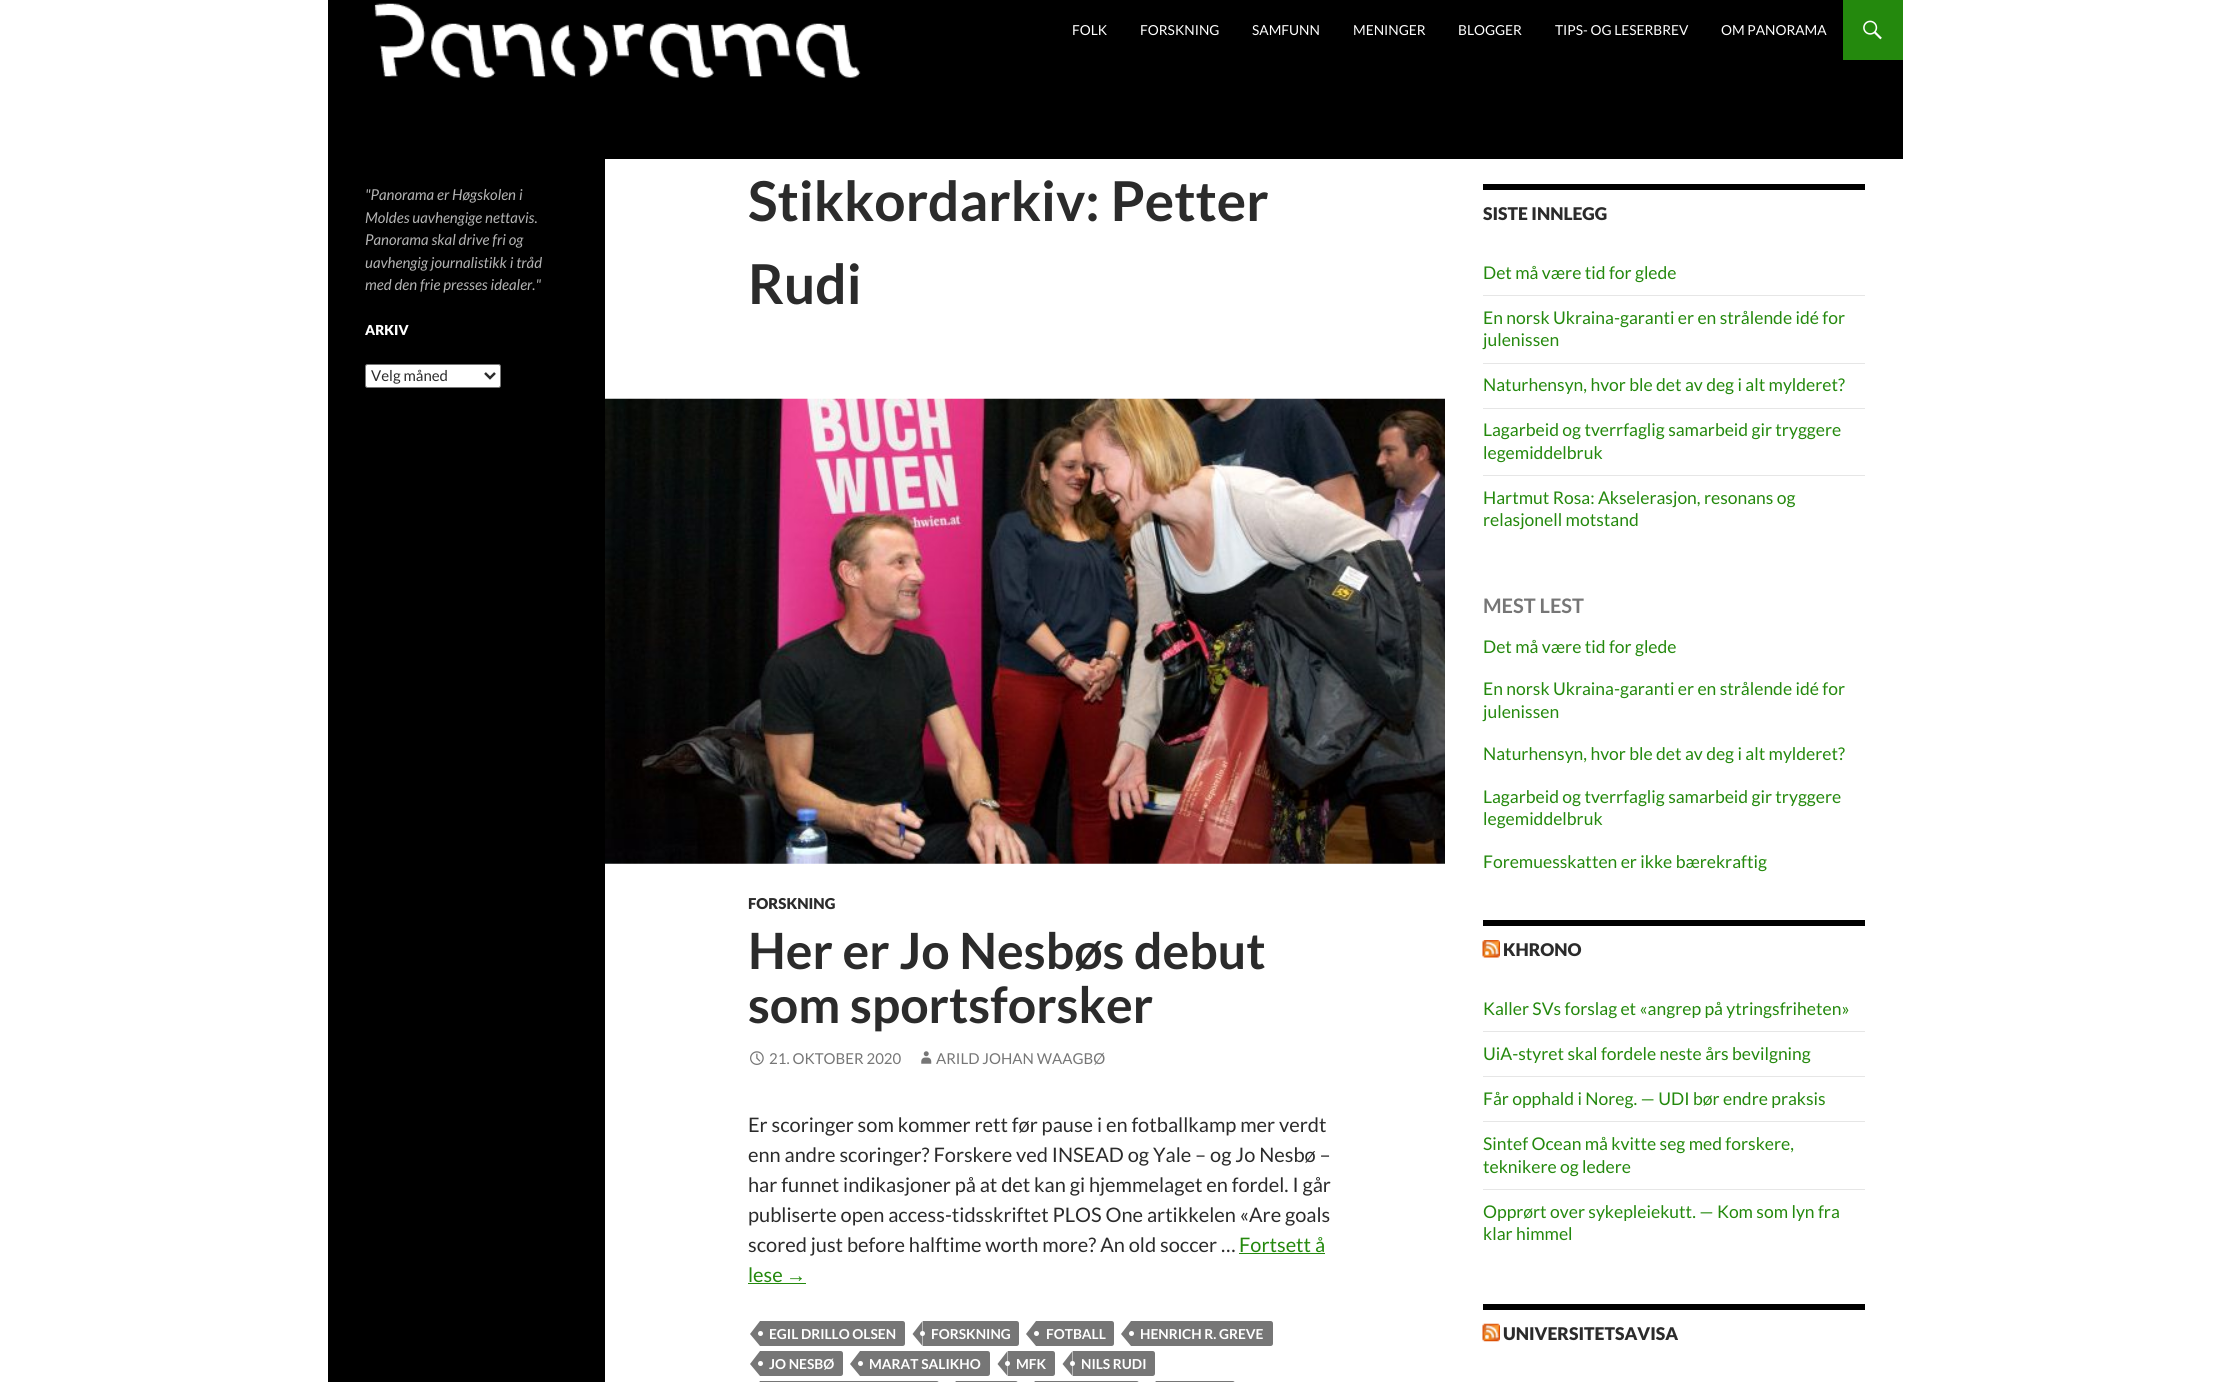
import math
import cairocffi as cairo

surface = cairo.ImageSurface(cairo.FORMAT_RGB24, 2230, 1382)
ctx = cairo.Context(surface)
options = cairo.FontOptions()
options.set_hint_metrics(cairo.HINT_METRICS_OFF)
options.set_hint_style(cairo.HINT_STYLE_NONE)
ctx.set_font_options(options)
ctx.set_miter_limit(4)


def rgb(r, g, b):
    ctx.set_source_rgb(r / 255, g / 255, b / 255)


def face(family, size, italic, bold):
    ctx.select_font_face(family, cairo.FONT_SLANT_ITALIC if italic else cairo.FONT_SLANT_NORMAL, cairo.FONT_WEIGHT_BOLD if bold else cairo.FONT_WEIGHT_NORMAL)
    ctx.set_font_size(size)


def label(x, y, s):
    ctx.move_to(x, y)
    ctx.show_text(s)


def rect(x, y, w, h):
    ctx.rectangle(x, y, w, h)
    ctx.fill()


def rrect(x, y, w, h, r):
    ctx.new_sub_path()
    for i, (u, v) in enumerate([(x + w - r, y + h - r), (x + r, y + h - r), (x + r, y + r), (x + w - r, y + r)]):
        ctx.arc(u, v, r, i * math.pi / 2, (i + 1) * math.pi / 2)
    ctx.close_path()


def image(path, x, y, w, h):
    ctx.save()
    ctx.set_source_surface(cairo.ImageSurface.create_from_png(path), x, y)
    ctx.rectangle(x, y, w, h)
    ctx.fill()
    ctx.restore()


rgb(255, 255, 255)
ctx.paint()
rgb(0, 0, 0)
rect(328, 0, 1575, 159)
image('image0.png', 374, 3, 487, 75)
face('Lato', 13.75, 0, 0)
rgb(255, 255, 255)
label(1072, 35, 'FOLK')
label(1140, 35, 'FORSKNING')
label(1252, 35, 'SAMFUNN')
label(1353, 35, 'MENINGER')
label(1458, 35, 'BLOGGER')
label(1555, 35, 'TIPS- OG LESERBREV')
label(1721, 35, 'OM PANORAMA')
rgb(36, 137, 13)
rect(1843, 0, 60, 60)
image('image1.png', 1863, 20, 19, 20)
rgb(0, 0, 0)
rect(328, 159, 277, 1223)
face('Lato', 15, 1, 0)
rgb(179, 179, 179)
label(365, 200, '"Panorama er Høgskolen i')
label(365, 223, 'Moldes uavhengige nettavis.')
label(365, 245, 'Panorama skal drive fri og')
label(365, 268, 'uavhengig journalistikk i tråd')
label(365, 290, 'med den frie presses idealer."')
face('Lato Black', 13.75, 0, 0)
rgb(255, 255, 255)
label(365, 335, 'ARKIV')
rrect(365.5, 364.5, 135, 23, 2)
ctx.fill_preserve()
rgb(118, 118, 118)
ctx.set_line_width(1)
ctx.stroke()
ctx.new_path()
ctx.move_to(485, 373)
ctx.line_to(490, 378)
ctx.line_to(495, 373)
rgb(43, 43, 43)
ctx.set_line_width(2.5)
ctx.stroke()
face('Lato', 15, 0, 0)
label(371, 381, 'Velg måned')
face('Lato', 55, 0, 1)
label(748, 221, 'Stikkordarkiv: Petter')
label(748, 304, 'Rudi')
image('image2.png', 605, 398, 840, 466)
face('Lato Black', 15, 0, 0)
label(748, 909, 'FORSKNING')
face('Lato', 50, 0, 1)
label(748, 969, 'Her er Jo Nesbøs debut')
label(748, 1023, 'som sportsforsker')
image('image3.png', 750, 1051, 14, 14)
face('Lato', 15, 0, 0)
rgb(118, 118, 118)
label(769, 1064, '21. OKTOBER 2020')
image('image4.png', 921, 1051, 11, 13)
label(936, 1064, 'ARILD JOHAN WAAGBØ')
face('Lato', 20, 0, 0)
rgb(43, 43, 43)
label(748, 1132, 'Er scoringer som kommer rett før pause i en fotballkamp mer verdt')
label(748, 1162, 'enn andre scoringer? Forskere ved INSEAD og Yale – og Jo Nesbø –')
label(748, 1192, 'har funnet indikasjoner på at det kan gi hjemmelaget en fordel. I går')
label(748, 1222, 'publiserte open access-tidsskriftet PLOS One artikkelen «Are goals')
label(748, 1252, 'scored just before halftime worth more? An old soccer …')
rgb(36, 137, 13)
label(1239, 1252, 'Fortsett å')
rect(1239, 1253, 86, 1)
label(748, 1282, 'lese')
face('Liberation Sans', 20, 0, 0)
label(786, 1282, '→')
rect(748, 1283, 58, 1)
rgb(118, 118, 118)
ctx.new_path()
ctx.move_to(760, 1321)
ctx.line_to(902.5, 1321)
ctx.curve_to(904, 1321, 905, 1322, 905, 1323.5)
ctx.line_to(905, 1343.5)
ctx.curve_to(905, 1345, 904, 1346, 902.5, 1346)
ctx.line_to(760, 1346)
ctx.close_path()
ctx.fill()
ctx.new_path()
ctx.move_to(760, 1321)
ctx.line_to(760, 1346)
ctx.line_to(750, 1334)
ctx.close_path()
ctx.fill()
rgb(255, 255, 255)
ctx.arc(760.5, 1333.5, 2.5, 0, 2 * math.pi)
ctx.fill()
face('Lato', 13.75, 0, 1)
label(769, 1339, 'EGIL DRILLO OLSEN')
rgb(118, 118, 118)
ctx.new_path()
ctx.move_to(923, 1321)
ctx.line_to(1016.5, 1321)
ctx.curve_to(1018, 1321, 1019, 1322, 1019, 1323.5)
ctx.line_to(1019, 1343.5)
ctx.curve_to(1019, 1345, 1018, 1346, 1016.5, 1346)
ctx.line_to(923, 1346)
ctx.close_path()
ctx.fill()
ctx.new_path()
ctx.move_to(922.5, 1321)
ctx.line_to(922.5, 1346)
ctx.line_to(912.5, 1334)
ctx.close_path()
ctx.fill()
rgb(255, 255, 255)
label(931, 1339, 'FORSKNING')
ctx.new_path()
ctx.arc(922.5, 1333.5, 2.5, 0, 2 * math.pi)
ctx.fill()
rgb(118, 118, 118)
ctx.new_path()
ctx.move_to(1036, 1321)
ctx.line_to(1111.5, 1321)
ctx.curve_to(1113, 1321, 1114, 1322, 1114, 1323.5)
ctx.line_to(1114, 1343.5)
ctx.curve_to(1114, 1345, 1113, 1346, 1111.5, 1346)
ctx.line_to(1036, 1346)
ctx.close_path()
ctx.fill()
ctx.new_path()
ctx.move_to(1036, 1321)
ctx.line_to(1036, 1346)
ctx.line_to(1026, 1334)
ctx.close_path()
ctx.fill()
rgb(255, 255, 255)
ctx.arc(1036.5, 1333.5, 2.5, 0, 2 * math.pi)
ctx.fill()
label(1046, 1339, 'FOTBALL')
rgb(118, 118, 118)
ctx.new_path()
ctx.move_to(1131, 1321)
ctx.line_to(1270.5, 1321)
ctx.curve_to(1272, 1321, 1273, 1322, 1273, 1323.5)
ctx.line_to(1273, 1343.5)
ctx.curve_to(1273, 1345, 1272, 1346, 1270.5, 1346)
ctx.line_to(1131, 1346)
ctx.close_path()
ctx.fill()
ctx.new_path()
ctx.move_to(1131, 1321)
ctx.line_to(1131, 1346)
ctx.line_to(1121, 1334)
ctx.close_path()
ctx.fill()
rgb(255, 255, 255)
ctx.arc(1131.5, 1333.5, 2.5, 0, 2 * math.pi)
ctx.fill()
label(1140, 1339, 'HENRICH R. GREVE')
rgb(118, 118, 118)
ctx.new_path()
ctx.move_to(760, 1351)
ctx.line_to(840.5, 1351)
ctx.curve_to(842, 1351, 843, 1352, 843, 1353.5)
ctx.line_to(843, 1373.5)
ctx.curve_to(843, 1375, 842, 1376, 840.5, 1376)
ctx.line_to(760, 1376)
ctx.close_path()
ctx.fill()
ctx.new_path()
ctx.move_to(760, 1351)
ctx.line_to(760, 1376)
ctx.line_to(750, 1364)
ctx.close_path()
ctx.fill()
rgb(255, 255, 255)
ctx.arc(760.5, 1363.5, 2.5, 0, 2 * math.pi)
ctx.fill()
label(769, 1369, 'JO NESBØ')
rgb(118, 118, 118)
ctx.new_path()
ctx.move_to(860, 1351)
ctx.line_to(987.5, 1351)
ctx.curve_to(989, 1351, 990, 1352, 990, 1353.5)
ctx.line_to(990, 1373.5)
ctx.curve_to(990, 1375, 989, 1376, 987.5, 1376)
ctx.line_to(860, 1376)
ctx.close_path()
ctx.fill()
ctx.new_path()
ctx.move_to(860, 1351)
ctx.line_to(860, 1376)
ctx.line_to(850, 1364)
ctx.close_path()
ctx.fill()
rgb(255, 255, 255)
ctx.arc(860.5, 1363.5, 2.5, 0, 2 * math.pi)
ctx.fill()
label(869, 1369, 'MARAT SALIKHO')
rgb(118, 118, 118)
ctx.new_path()
ctx.move_to(1008, 1351)
ctx.line_to(1052.5, 1351)
ctx.curve_to(1054, 1351, 1055, 1352, 1055, 1353.5)
ctx.line_to(1055, 1373.5)
ctx.curve_to(1055, 1375, 1054, 1376, 1052.5, 1376)
ctx.line_to(1008, 1376)
ctx.close_path()
ctx.fill()
ctx.new_path()
ctx.move_to(1007.5, 1351)
ctx.line_to(1007.5, 1376)
ctx.line_to(997.5, 1364)
ctx.close_path()
ctx.fill()
rgb(255, 255, 255)
label(1016, 1369, 'MFK')
ctx.new_path()
ctx.arc(1007.5, 1363.5, 2.5, 0, 2 * math.pi)
ctx.fill()
rgb(118, 118, 118)
ctx.new_path()
ctx.move_to(1073, 1351)
ctx.line_to(1152.5, 1351)
ctx.curve_to(1154, 1351, 1155, 1352, 1155, 1353.5)
ctx.line_to(1155, 1373.5)
ctx.curve_to(1155, 1375, 1154, 1376, 1152.5, 1376)
ctx.line_to(1073, 1376)
ctx.close_path()
ctx.fill()
ctx.new_path()
ctx.move_to(1072.5, 1351)
ctx.line_to(1072.5, 1376)
ctx.line_to(1062.5, 1364)
ctx.close_path()
ctx.fill()
rgb(255, 255, 255)
label(1081, 1369, 'NILS RUDI')
ctx.new_path()
ctx.arc(1072.5, 1363.5, 2.5, 0, 2 * math.pi)
ctx.fill()
rgb(118, 118, 118)
ctx.new_path()
ctx.move_to(760, 1381)
ctx.line_to(936.5, 1381)
ctx.curve_to(938, 1381, 939, 1382, 939, 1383.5)
ctx.line_to(939, 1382.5)
ctx.curve_to(939, 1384, 938, 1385, 936.5, 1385)
ctx.line_to(760, 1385)
ctx.close_path()
ctx.fill()
ctx.new_path()
ctx.move_to(760, 1381)
ctx.line_to(760, 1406)
ctx.line_to(750, 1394)
ctx.close_path()
ctx.fill()
ctx.new_path()
ctx.move_to(956, 1381)
ctx.line_to(1015.5, 1381)
ctx.curve_to(1017, 1381, 1018, 1382, 1018, 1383.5)
ctx.line_to(1018, 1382.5)
ctx.curve_to(1018, 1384, 1017, 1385, 1015.5, 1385)
ctx.line_to(956, 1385)
ctx.close_path()
ctx.fill()
ctx.new_path()
ctx.move_to(956, 1381)
ctx.line_to(956, 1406)
ctx.line_to(946, 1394)
ctx.close_path()
ctx.fill()
ctx.new_path()
ctx.move_to(1035, 1381)
ctx.line_to(1136.5, 1381)
ctx.curve_to(1138, 1381, 1139, 1382, 1139, 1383.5)
ctx.line_to(1139, 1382.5)
ctx.curve_to(1139, 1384, 1138, 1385, 1136.5, 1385)
ctx.line_to(1035, 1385)
ctx.close_path()
ctx.fill()
ctx.new_path()
ctx.move_to(1035, 1381)
ctx.line_to(1035, 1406)
ctx.line_to(1025, 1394)
ctx.close_path()
ctx.fill()
ctx.new_path()
ctx.move_to(1156, 1381)
ctx.line_to(1232.5, 1381)
ctx.curve_to(1234, 1381, 1235, 1382, 1235, 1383.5)
ctx.line_to(1235, 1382.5)
ctx.curve_to(1235, 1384, 1234, 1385, 1232.5, 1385)
ctx.line_to(1156, 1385)
ctx.close_path()
ctx.fill()
ctx.new_path()
ctx.move_to(1156, 1381)
ctx.line_to(1156, 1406)
ctx.line_to(1146, 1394)
ctx.close_path()
ctx.fill()
rgb(0, 0, 0)
rect(1483, 184, 382, 6)
face('Lato Black', 17.5, 0, 0)
rgb(43, 43, 43)
label(1483, 220, 'SISTE INNLEGG')
face('Lato', 17.5, 0, 0)
rgb(36, 137, 13)
label(1483, 279, 'Det må være tid for glede')
rgb(230, 230, 230)
rect(1483, 295, 382, 1)
rgb(36, 137, 13)
label(1483, 324, 'En norsk Ukraina-garanti er en strålende idé for')
label(1483, 346, 'julenissen')
rgb(230, 230, 230)
rect(1483, 363, 382, 1)
rgb(36, 137, 13)
label(1483, 391, 'Naturhensyn, hvor ble det av deg i alt mylderet?')
rgb(230, 230, 230)
rect(1483, 408, 382, 1)
rgb(36, 137, 13)
label(1483, 436, 'Lagarbeid og tverrfaglig samarbeid gir tryggere')
label(1483, 459, 'legemiddelbruk')
rgb(230, 230, 230)
rect(1483, 475, 382, 1)
rgb(36, 137, 13)
label(1483, 504, 'Hartmut Rosa: Akselerasjon, resonans og')
label(1483, 526, 'relasjonell motstand')
face('Lato', 20, 0, 1)
rgb(118, 118, 118)
label(1483, 613, 'MEST LEST')
face('Lato', 17.5, 0, 0)
rgb(36, 137, 13)
label(1483, 653, 'Det må være tid for glede')
label(1483, 695, 'En norsk Ukraina-garanti er en strålende idé for')
label(1483, 718, 'julenissen')
label(1483, 760, 'Naturhensyn, hvor ble det av deg i alt mylderet?')
label(1483, 803, 'Lagarbeid og tverrfaglig samarbeid gir tryggere')
label(1483, 825, 'legemiddelbruk')
label(1483, 868, 'Foremuesskatten er ikke bærekraftig')
rgb(0, 0, 0)
rect(1483, 920, 382, 6)
image('image5.png', 1482, 940, 18, 18)
face('Lato Black', 17.5, 0, 0)
rgb(43, 43, 43)
label(1503, 956, 'KHRONO')
face('Lato', 17.5, 0, 0)
rgb(36, 137, 13)
label(1483, 1015, 'Kaller SVs forslag et «angrep på ytringsfriheten»')
rgb(230, 230, 230)
rect(1483, 1031, 382, 1)
rgb(36, 137, 13)
label(1483, 1060, 'UiA-styret skal fordele neste års bevilgning')
rgb(230, 230, 230)
rect(1483, 1076, 382, 1)
rgb(36, 137, 13)
label(1483, 1105, 'Får opphald i Noreg. — UDI bør endre praksis')
rgb(230, 230, 230)
rect(1483, 1121, 382, 1)
rgb(36, 137, 13)
label(1483, 1150, 'Sintef Ocean må kvitte seg med forskere,')
label(1483, 1173, 'teknikere og ledere')
rgb(230, 230, 230)
rect(1483, 1189, 382, 1)
rgb(36, 137, 13)
label(1483, 1218, 'Opprørt over sykepleiekutt. — Kom som lyn fra')
label(1483, 1240, 'klar himmel')
rgb(0, 0, 0)
rect(1483, 1304, 382, 6)
image('image6.png', 1482, 1323, 18, 19)
face('Lato Black', 17.5, 0, 0)
rgb(43, 43, 43)
label(1503, 1340, 'UNIVERSITETSAVISA')
surface.write_to_png('render.png')
